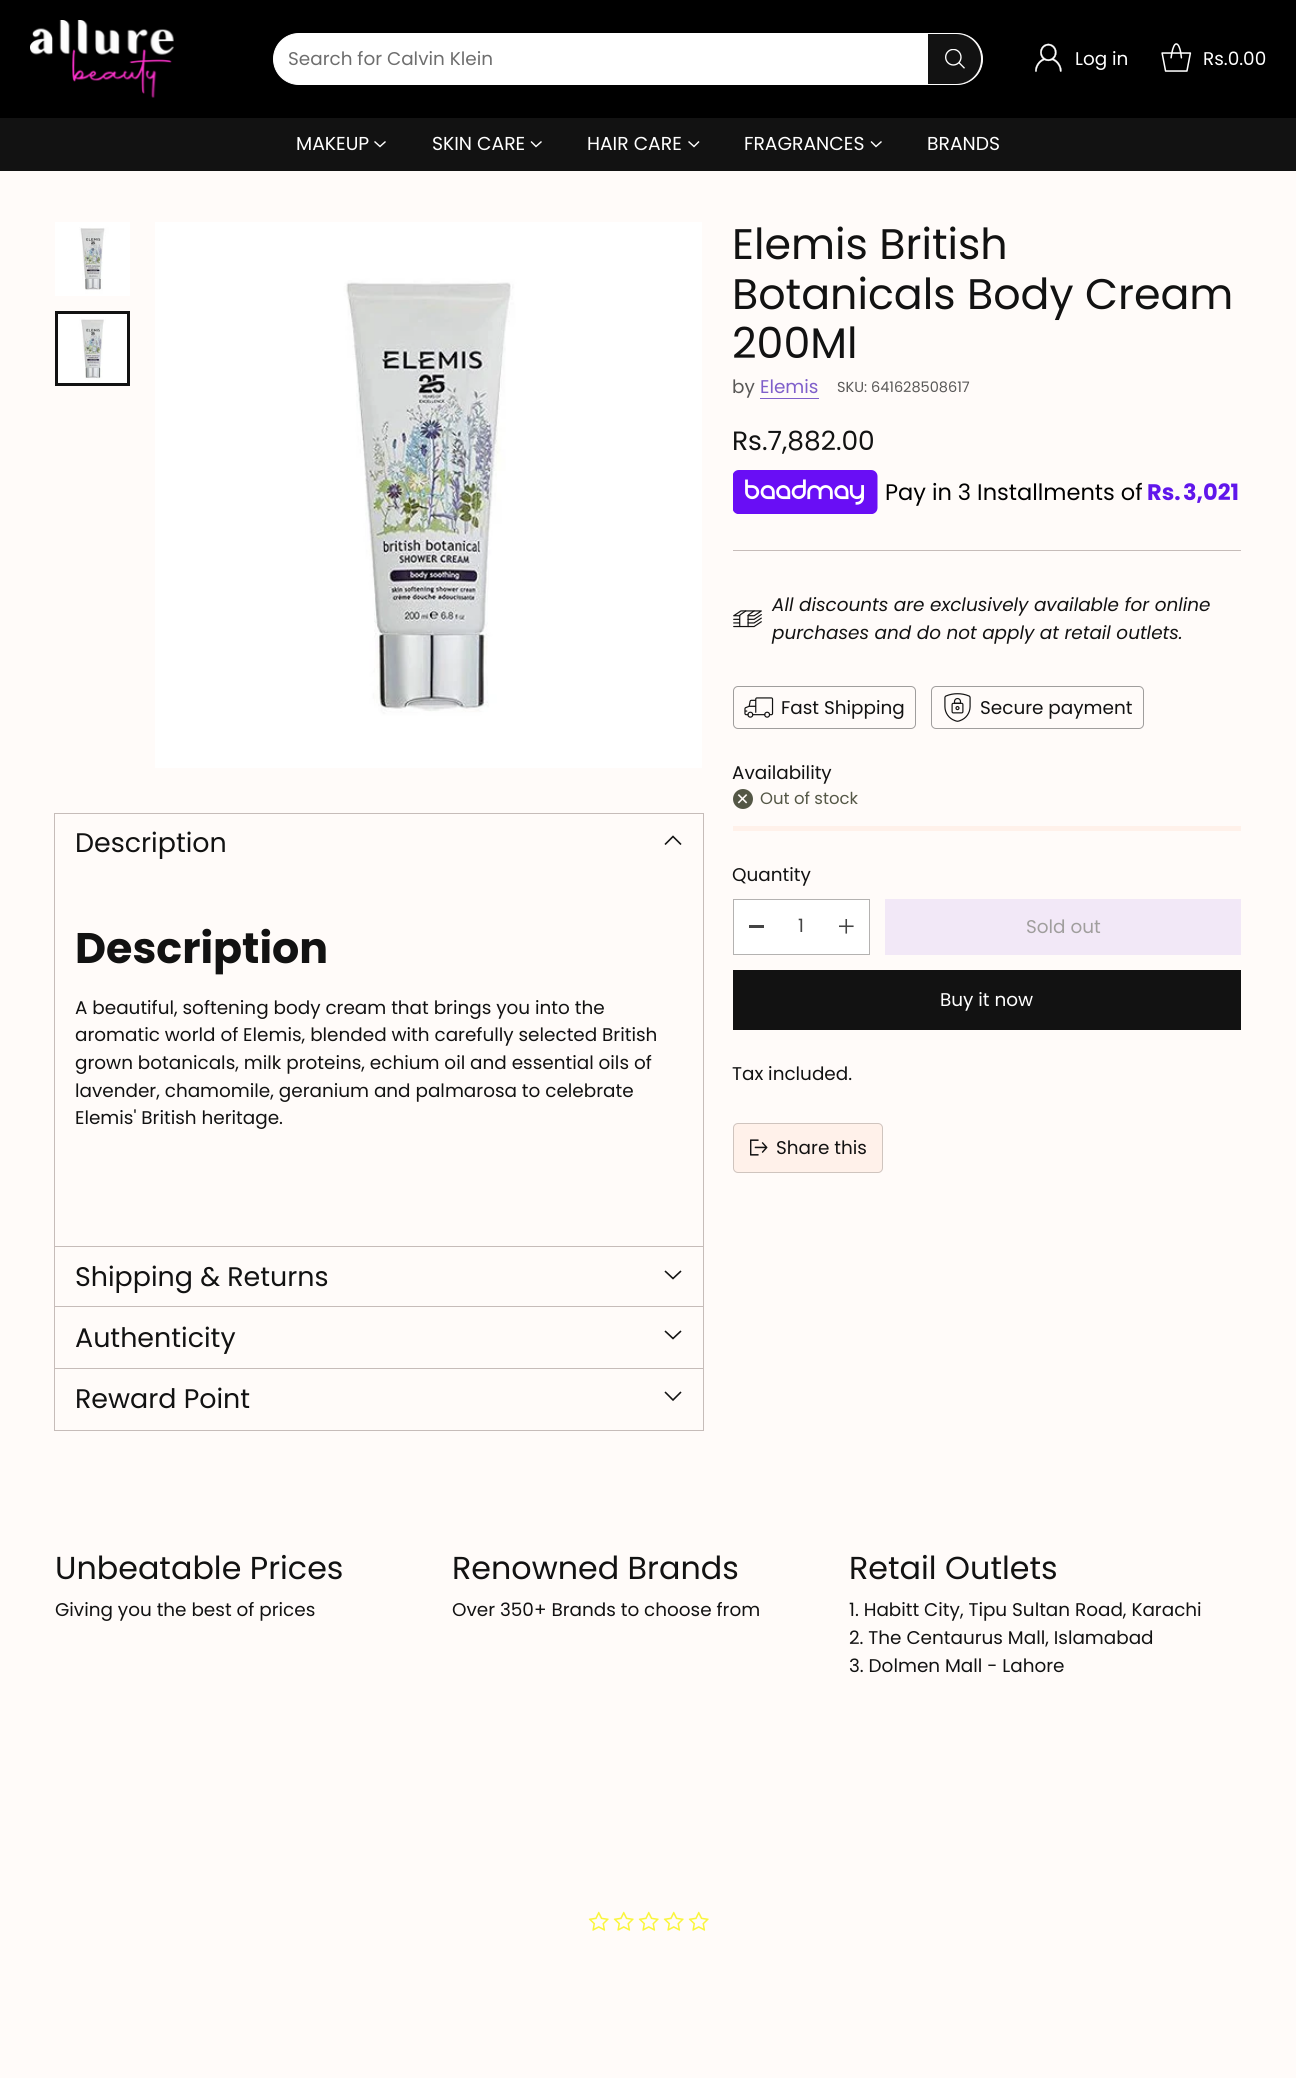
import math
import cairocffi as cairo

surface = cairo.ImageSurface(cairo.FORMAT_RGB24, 1296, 2078)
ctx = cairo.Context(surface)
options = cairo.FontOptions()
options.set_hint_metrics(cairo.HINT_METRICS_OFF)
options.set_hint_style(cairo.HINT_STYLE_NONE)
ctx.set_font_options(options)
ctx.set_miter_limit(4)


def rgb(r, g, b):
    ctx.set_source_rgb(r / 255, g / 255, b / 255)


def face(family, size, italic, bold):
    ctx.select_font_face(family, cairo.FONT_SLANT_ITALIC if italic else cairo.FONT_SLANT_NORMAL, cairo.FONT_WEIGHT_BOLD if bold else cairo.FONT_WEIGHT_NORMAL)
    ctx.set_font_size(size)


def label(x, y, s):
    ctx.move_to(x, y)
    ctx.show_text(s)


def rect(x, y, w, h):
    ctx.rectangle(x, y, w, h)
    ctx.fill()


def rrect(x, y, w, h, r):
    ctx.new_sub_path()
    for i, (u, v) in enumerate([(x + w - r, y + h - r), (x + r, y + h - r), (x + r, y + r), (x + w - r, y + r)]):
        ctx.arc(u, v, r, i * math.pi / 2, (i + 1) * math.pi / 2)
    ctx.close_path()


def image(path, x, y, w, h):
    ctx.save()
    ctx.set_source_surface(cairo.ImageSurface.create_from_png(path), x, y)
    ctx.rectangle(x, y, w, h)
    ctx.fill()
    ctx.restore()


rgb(255, 251, 249)
ctx.paint()
rgb(0, 0, 0)
rect(0, 0, 1296, 118)
image('image0.png', 30, 20, 144, 78)
rgb(255, 251, 249)
rrect(273.5, 33.5, 709, 51, 25.5)
ctx.fill_preserve()
rgb(255, 255, 255)
ctx.set_line_width(1)
ctx.stroke()
rrect(274, 34, 707, 50, 25)
ctx.fill()
face('Poppins', 18.4, 0, 0)
rgb(110, 110, 110)
label(288, 65, 'Search for Calvin Klein')
rgb(18, 18, 18)
ctx.new_path()
ctx.move_to(928, 34)
ctx.line_to(956, 34)
ctx.curve_to(970, 34, 981, 45, 981, 59)
ctx.curve_to(981, 73, 970, 84, 956, 84)
ctx.line_to(928, 84)
ctx.close_path()
ctx.fill()
image('image1.png', 945, 49, 20, 20)
image('image2.png', 1035, 43, 27, 29)
rgb(255, 255, 255)
label(1075, 65, 'Log in')
image('image3.png', 1161, 43, 31, 29)
label(1203, 65, 'Rs.0.00')
rgb(18, 18, 18)
rect(0, 118, 1296, 53)
face('Poppins', 18.75, 0, 0)
rgb(255, 255, 255)
label(296, 150, 'MAKEUP')
ctx.new_path()
ctx.move_to(374.5, 141.5)
ctx.line_to(380, 146.5)
ctx.line_to(385.5, 141.5)
ctx.set_line_width(1.4)
ctx.stroke()
label(432, 150, 'SKIN CARE')
ctx.new_path()
ctx.move_to(531, 141.5)
ctx.line_to(536, 146.5)
ctx.line_to(541.5, 141.5)
ctx.stroke()
label(587, 150, 'HAIR CARE')
ctx.new_path()
ctx.move_to(688.5, 141.5)
ctx.line_to(694, 146.5)
ctx.line_to(699, 141.5)
ctx.stroke()
label(744, 150, 'FRAGRANCES')
ctx.new_path()
ctx.move_to(871, 141.5)
ctx.line_to(876, 146.5)
ctx.line_to(881.5, 141.5)
ctx.stroke()
label(927, 150, 'BRANDS')
image('image4.png', 55, 222, 75, 74)
image('image5.png', 58, 314, 69, 69)
ctx.rectangle(56.5, 312.5, 72, 72)
rgb(18, 18, 18)
ctx.set_line_width(3)
ctx.stroke()
image('image6.png', 155, 222, 547, 546)
ctx.rectangle(54.5, 813.5, 649, 435)
rgb(198, 188, 185)
ctx.set_line_width(1)
ctx.stroke()
face('Poppins', 26.9, 0, 0)
rgb(18, 18, 18)
label(75, 852, 'Description')
ctx.new_path()
ctx.move_to(665, 844.5)
ctx.line_to(673, 836.5)
ctx.line_to(681, 844.5)
ctx.set_line_width(1.6)
ctx.stroke()
face('Poppins', 42.75, 0, 1)
label(75, 963, 'Description')
face('Poppins', 18.4, 0, 0)
label(75, 1014, 'A beautiful, softening body cream that brings you into the')
label(75, 1041, 'aromatic world of Elemis, blended with carefully selected British')
label(75, 1069, 'grown botanicals, milk proteins, echium oil and essential oils of')
label(75, 1097, 'lavender, chamomile, geranium and palmarosa to celebrate')
label(75, 1124, 'Elemis\' British heritage.')
ctx.rectangle(54.5, 1246.5, 649, 62)
rgb(198, 188, 185)
ctx.set_line_width(1)
ctx.stroke()
rgb(255, 251, 249)
rect(55, 1248, 648, 1)
face('Poppins', 26.9, 0, 0)
rgb(18, 18, 18)
label(75, 1286, 'Shipping & Returns')
ctx.new_path()
ctx.move_to(665, 1271)
ctx.line_to(673, 1278.5)
ctx.line_to(681, 1271)
ctx.set_line_width(1.6)
ctx.stroke()
ctx.rectangle(54.5, 1306.5, 649, 63)
rgb(198, 188, 185)
ctx.set_line_width(1)
ctx.stroke()
rgb(255, 251, 249)
rect(55, 1308, 648, 1)
rgb(18, 18, 18)
label(75, 1347, 'Authenticity')
ctx.new_path()
ctx.move_to(665, 1331)
ctx.line_to(673, 1338.5)
ctx.line_to(681, 1331)
ctx.set_line_width(1.6)
ctx.stroke()
ctx.rectangle(54.5, 1368.5, 649, 62)
rgb(198, 188, 185)
ctx.set_line_width(1)
ctx.stroke()
rgb(255, 251, 249)
rect(55, 1369, 648, 1)
rgb(18, 18, 18)
label(75, 1408, 'Reward Point')
ctx.new_path()
ctx.move_to(665, 1392)
ctx.line_to(673, 1400)
ctx.line_to(681, 1392)
ctx.set_line_width(1.6)
ctx.stroke()
rgb(198, 188, 185)
rect(733, 550, 508, 1)
face('Poppins', 42.75, 0, 0)
rgb(18, 18, 18)
label(732, 259, 'Elemis British')
label(732, 309, 'Botanicals Body Cream')
label(732, 358, '200Ml')
face('Poppins', 18.4, 0, 0)
rgb(89, 88, 87)
label(732, 393, 'by')
rgb(127, 95, 202)
label(760, 393, 'Elemis')
rect(760, 398, 59, 1)
face('Poppins', 14.5, 0, 0)
rgb(89, 88, 87)
label(837, 392, 'SKU: 641628508617')
face('Poppins', 26.5, 0, 0)
rgb(18, 18, 18)
label(732, 450, 'Rs.7,882.00')
image('image7.png', 733, 470, 145, 44)
face('Poppins', 22.5, 0, 0)
rgb(0, 0, 0)
label(885, 500, 'Pay in 3 Installments of')
face('Poppins', 22.5, 0, 1)
rgb(96, 22, 235)
label(1147, 500, 'Rs.')
label(1183, 500, '3,021')
image('image8.png', 733, 610, 29, 18)
face('Poppins', 18.4, 1, 0)
rgb(18, 18, 18)
label(772, 611, 'All discounts are exclusively available for online')
label(772, 639, 'purchases and do not apply at retail outlets.')
rrect(733.5, 686.5, 182, 42, 4.5)
rgb(160, 158, 157)
ctx.set_line_width(1)
ctx.stroke()
image('image9.png', 744, 697, 30, 21)
face('Poppins', 18.4, 0, 0)
rgb(18, 18, 18)
label(781, 714, 'Fast Shipping')
rrect(931.5, 686.5, 212, 42, 4.5)
rgb(160, 158, 157)
ctx.stroke()
image('image10.png', 944, 693, 27, 29)
rgb(18, 18, 18)
label(980, 714, 'Secure payment')
label(732, 779, 'Availability')
rgb(84, 87, 70)
ctx.new_path()
ctx.arc(743, 799, 10, 0, 2 * math.pi)
ctx.fill()
image('image11.png', 737, 794, 11, 10)
face('Poppins', 16.5, 0, 0)
label(760, 804, 'Out of stock')
rgb(255, 241, 234)
rect(733, 826, 508, 5)
face('Poppins', 18.4, 0, 0)
rgb(18, 18, 18)
label(732, 881, 'Quantity')
ctx.rectangle(733.5, 899.5, 136, 55)
rgb(180, 178, 177)
ctx.stroke()
rgb(255, 255, 255)
rect(734, 900, 135, 54)
rgb(68, 68, 68)
rect(749, 925, 15, 3)
label(798, 932, '1')
image('image12.png', 839, 919, 15, 15)
rgb(242, 232, 247)
rect(885, 899, 356, 56)
rgb(160, 158, 157)
label(1026, 933, 'Sold out')
rgb(18, 18, 18)
rect(733, 970, 508, 60)
rgb(255, 255, 255)
label(940, 1006, 'Buy it now')
rgb(18, 18, 18)
label(732, 1080, 'Tax included.')
rgb(255, 241, 234)
rrect(733, 1123, 150, 50, 5)
ctx.fill()
rrect(733.5, 1123.5, 149, 49, 4.5)
ctx.set_source_rgba(0.071, 0.071, 0.071, 0.2)
ctx.stroke()
image('image13.png', 750, 1139, 18, 17)
rgb(18, 18, 18)
label(776, 1154, 'Share this')
face('Poppins', 31.75, 0, 0)
label(55, 1579, 'Unbeatable Prices')
face('Poppins', 18.4, 0, 0)
label(55, 1616, 'Giving you the best of prices')
face('Poppins', 31.75, 0, 0)
label(452, 1579, 'Renowned Brands')
face('Poppins', 18.4, 0, 0)
label(452, 1616, 'Over 350+ Brands to choose from')
face('Poppins', 31.75, 0, 0)
label(849, 1579, 'Retail Outlets')
face('Poppins', 18.4, 0, 0)
label(849, 1616, '1. Habitt City, Tipu Sultan Road, Karachi')
label(849, 1644, '2. The Centaurus Mall, Islamabad')
label(849, 1672, '3. Dolmen Mall - Lahore')
image('image14.png', 588, 1911, 21, 20)
image('image14.png', 613, 1911, 21, 20)
image('image14.png', 638, 1911, 21, 20)
image('image14.png', 663, 1911, 21, 20)
image('image14.png', 688, 1911, 21, 20)
surface.write_to_png('render.png')
